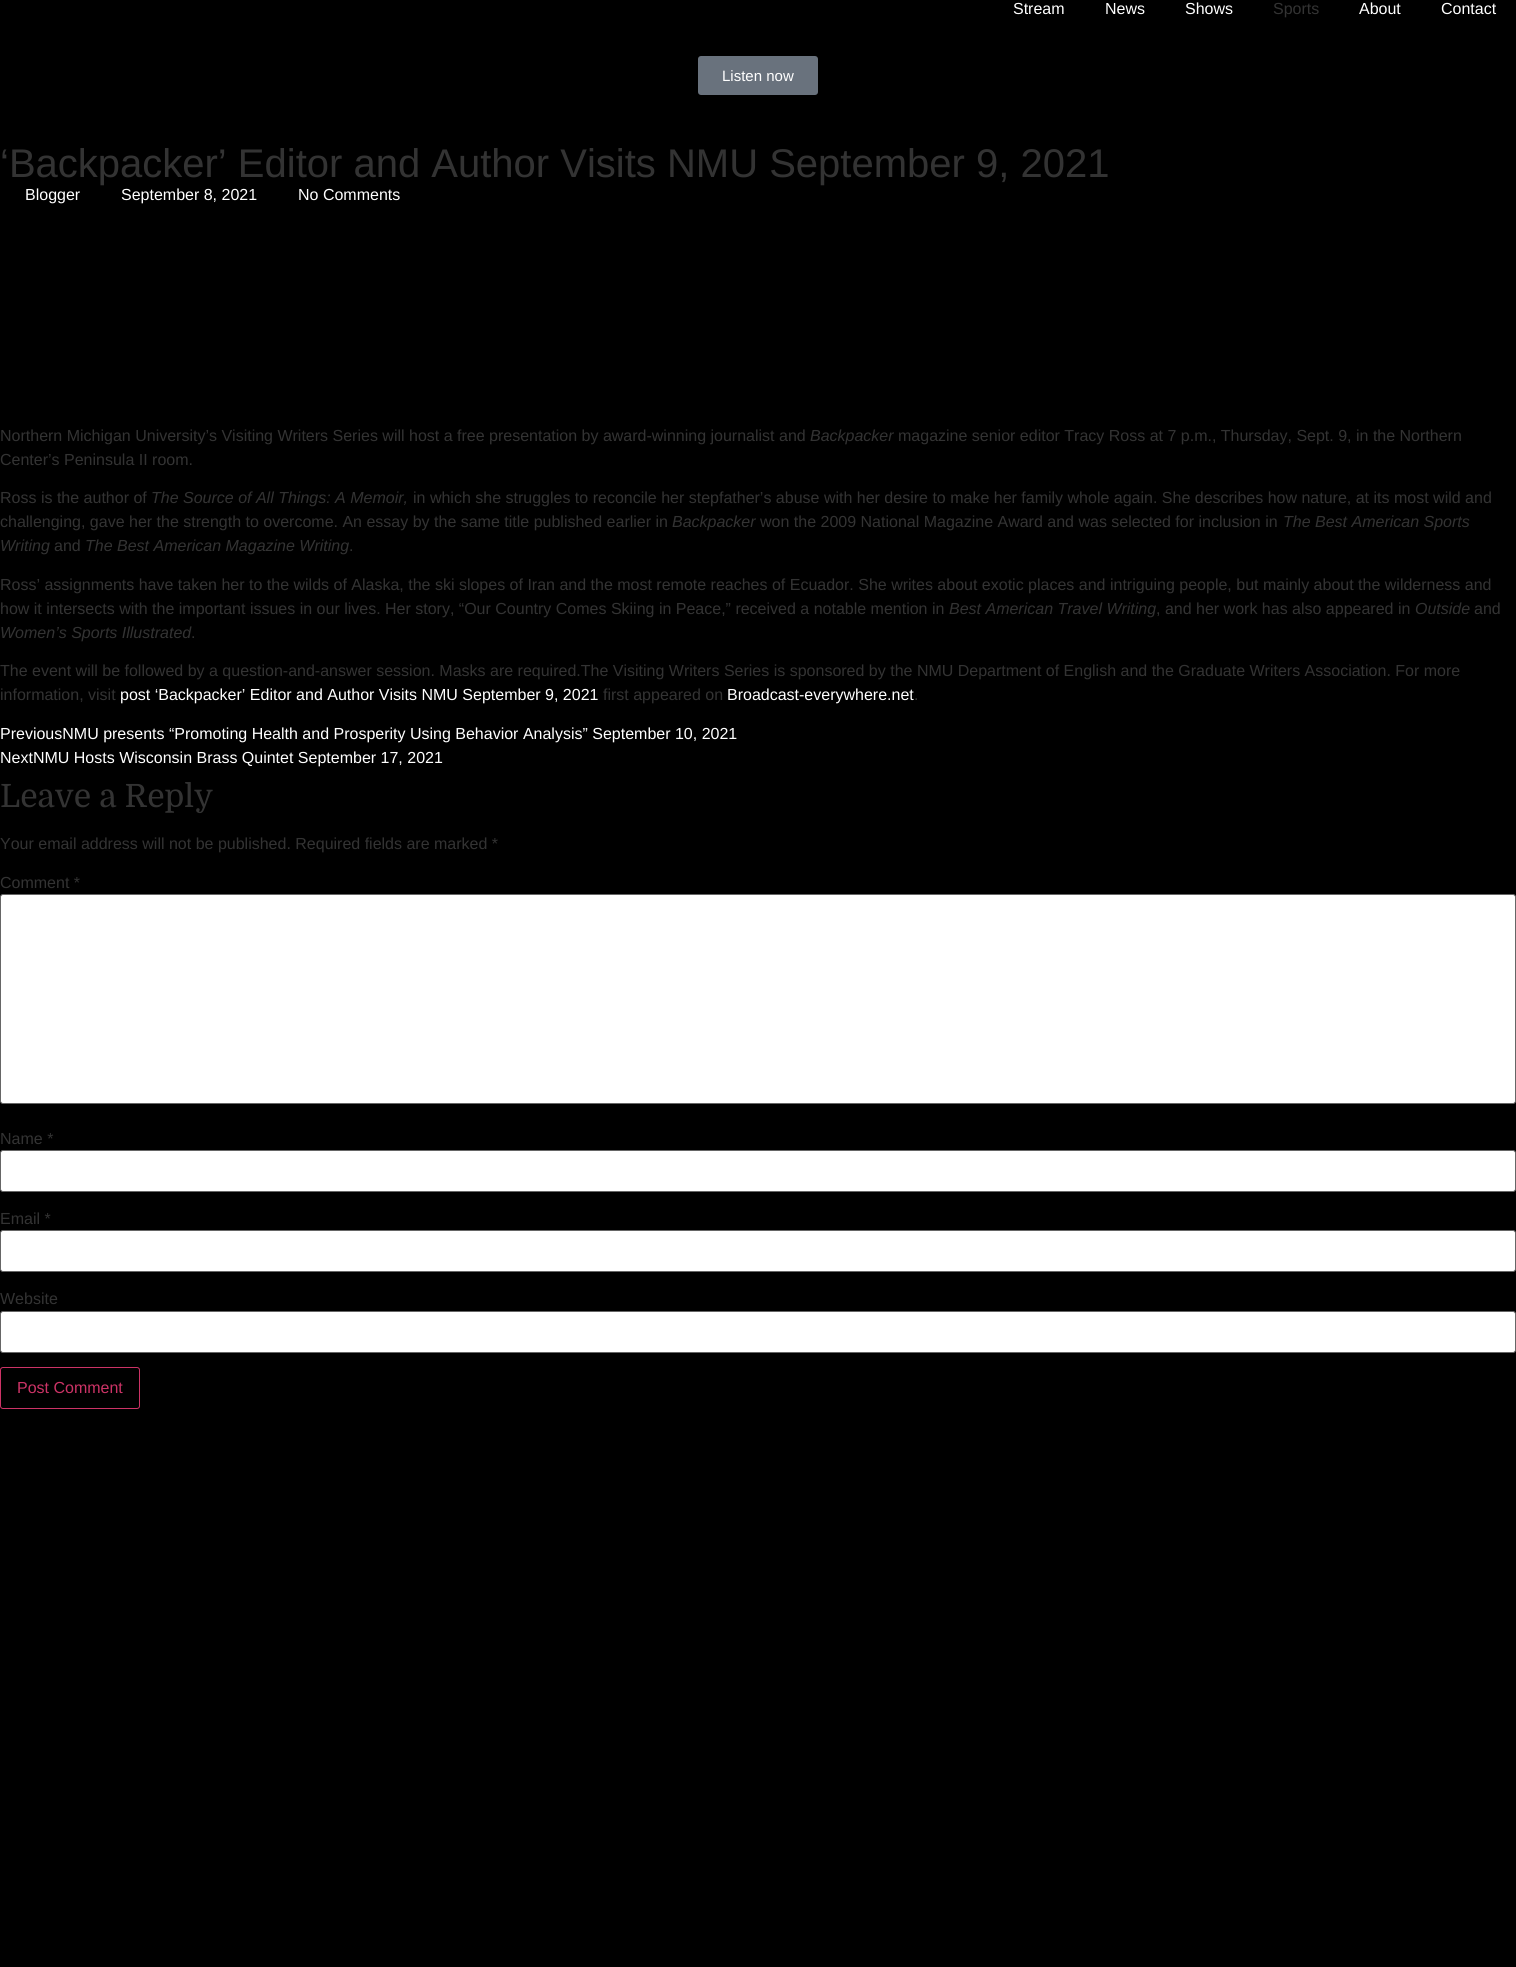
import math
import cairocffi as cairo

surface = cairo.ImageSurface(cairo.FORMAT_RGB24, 1516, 1967)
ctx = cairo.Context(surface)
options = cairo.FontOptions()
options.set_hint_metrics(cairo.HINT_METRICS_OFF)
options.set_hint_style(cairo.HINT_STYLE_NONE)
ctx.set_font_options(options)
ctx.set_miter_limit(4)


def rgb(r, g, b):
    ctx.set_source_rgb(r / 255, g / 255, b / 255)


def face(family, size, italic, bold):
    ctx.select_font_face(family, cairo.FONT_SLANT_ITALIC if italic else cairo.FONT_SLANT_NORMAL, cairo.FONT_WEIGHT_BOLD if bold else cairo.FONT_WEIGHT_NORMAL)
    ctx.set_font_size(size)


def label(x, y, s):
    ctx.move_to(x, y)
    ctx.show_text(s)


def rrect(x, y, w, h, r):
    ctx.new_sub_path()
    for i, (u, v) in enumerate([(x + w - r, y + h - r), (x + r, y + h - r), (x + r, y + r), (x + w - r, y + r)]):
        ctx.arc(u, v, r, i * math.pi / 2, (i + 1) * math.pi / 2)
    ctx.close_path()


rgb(0, 0, 0)
ctx.paint()
face('Liberation Sans', 16, 0, 0)
rgb(255, 255, 255)
label(1013, 14, 'Stream')
label(1105, 14, 'News')
label(1185, 14, 'Shows')
rgb(51, 51, 51)
label(1273, 14, 'Sports')
rgb(255, 255, 255)
label(1359, 14, 'About')
label(1441, 14, 'Contact')
rgb(105, 114, 125)
rrect(698, 56, 120, 39, 3)
ctx.fill()
face('Liberation Sans', 15, 0, 0)
rgb(255, 255, 255)
label(722, 81, 'Listen now')
face('Liberation Sans', 40, 0, 0)
rgb(51, 51, 51)
label(0, 177, '‘Backpacker’ Editor and Author Visits NMU September 9, 2021')
face('Liberation Sans', 16, 0, 0)
rgb(255, 255, 255)
label(25, 200, 'Blogger')
label(121, 200, 'September 8, 2021')
label(298, 200, 'No Comments')
rgb(51, 51, 51)
label(0, 441, 'Northern Michigan University’s Visiting Writers Series will host a free presentation by award-winning journalist and')
face('Liberation Sans', 16, 1, 0)
label(810, 441, 'Backpacker')
face('Liberation Sans', 16, 0, 0)
label(898, 441, 'magazine senior editor Tracy Ross at 7 p.m., Thursday, Sept. 9, in the Northern')
label(0, 465, 'Center’s Peninsula II room.')
label(0, 503, 'Ross is the author of')
face('Liberation Sans', 16, 1, 0)
label(151, 503, 'The Source of All Things: A Memoir,')
face('Liberation Sans', 16, 0, 0)
label(413, 503, 'in which she struggles to reconcile her stepfather’s abuse with her desire to make her family whole again. She describes how nature, at its most wild and')
label(0, 527, 'challenging, gave her the strength to overcome. An essay by the same title published earlier in')
face('Liberation Sans', 16, 1, 0)
label(672, 527, 'Backpacker')
face('Liberation Sans', 16, 0, 0)
label(760, 527, 'won the 2009 National Magazine Award and was selected for inclusion in')
face('Liberation Sans', 16, 1, 0)
label(1283, 527, 'The Best American Sports')
label(0, 551, 'Writing')
face('Liberation Sans', 16, 0, 0)
label(54, 551, 'and')
face('Liberation Sans', 16, 1, 0)
label(85, 551, 'The Best American Magazine Writing')
face('Liberation Sans', 16, 0, 0)
label(349, 551, '.')
label(0, 590, 'Ross’ assignments have taken her to the wilds of Alaska, the ski slopes of Iran and the most remote reaches of Ecuador. She writes about exotic places and intriguing people, but mainly about the wilderness and')
label(0, 614, 'how it intersects with the important issues in our lives. Her story, “Our Country Comes Skiing in Peace,” received a notable mention in')
face('Liberation Sans', 16, 1, 0)
label(949, 614, 'Best American Travel Writing')
face('Liberation Sans', 16, 0, 0)
label(1156, 614, ', and her work has also appeared in')
face('Liberation Sans', 16, 1, 0)
label(1415, 614, 'Outside')
face('Liberation Sans', 16, 0, 0)
label(1474, 614, 'and')
face('Liberation Sans', 16, 1, 0)
label(0, 638, 'Women’s Sports Illustrated')
face('Liberation Sans', 16, 0, 0)
label(191, 638, '.')
label(0, 676, 'The event will be followed by a question-and-answer session. Masks are required.The Visiting Writers Series is sponsored by the NMU Department of English and the Graduate Writers Association. For more')
label(0, 700, 'information, visit')
rgb(255, 255, 255)
label(120, 700, 'post ‘Backpacker’ Editor and Author Visits NMU September 9, 2021')
rgb(51, 51, 51)
label(603, 700, 'first appeared on')
rgb(255, 255, 255)
label(727, 700, 'Broadcast-everywhere.net')
rgb(51, 51, 51)
label(914, 700, '.')
rgb(255, 255, 255)
label(0, 739, 'PreviousNMU presents “Promoting Health and Prosperity Using Behavior Analysis” September 10, 2021')
label(0, 763, 'NextNMU Hosts Wisconsin Brass Quintet September 17, 2021')
face('Domine', 32, 0, 0)
rgb(51, 51, 51)
label(0, 807, 'Leave a Reply')
face('Liberation Sans', 16, 0, 0)
label(0, 849, 'Your email address will not be published. Required fields are marked *')
label(0, 888, 'Comment *')
rgb(255, 255, 255)
rrect(0.5, 894.5, 1515, 209, 2.5)
ctx.fill_preserve()
rgb(102, 102, 102)
ctx.set_line_width(1)
ctx.stroke()
rgb(51, 51, 51)
label(0, 1144, 'Name *')
rgb(255, 255, 255)
rrect(0.5, 1150.5, 1515, 41, 2.5)
ctx.fill_preserve()
rgb(102, 102, 102)
ctx.stroke()
rgb(51, 51, 51)
label(0, 1224, 'Email *')
rgb(255, 255, 255)
rrect(0.5, 1230.5, 1515, 41, 2.5)
ctx.fill_preserve()
rgb(102, 102, 102)
ctx.stroke()
rgb(51, 51, 51)
label(0, 1304, 'Website')
rgb(255, 255, 255)
rrect(0.5, 1311.5, 1515, 41, 2.5)
ctx.fill_preserve()
rgb(102, 102, 102)
ctx.stroke()
rrect(0.5, 1367.5, 139, 41, 2.5)
rgb(204, 51, 102)
ctx.stroke()
label(17, 1393, 'Post Comment')
surface.write_to_png('render.png')
